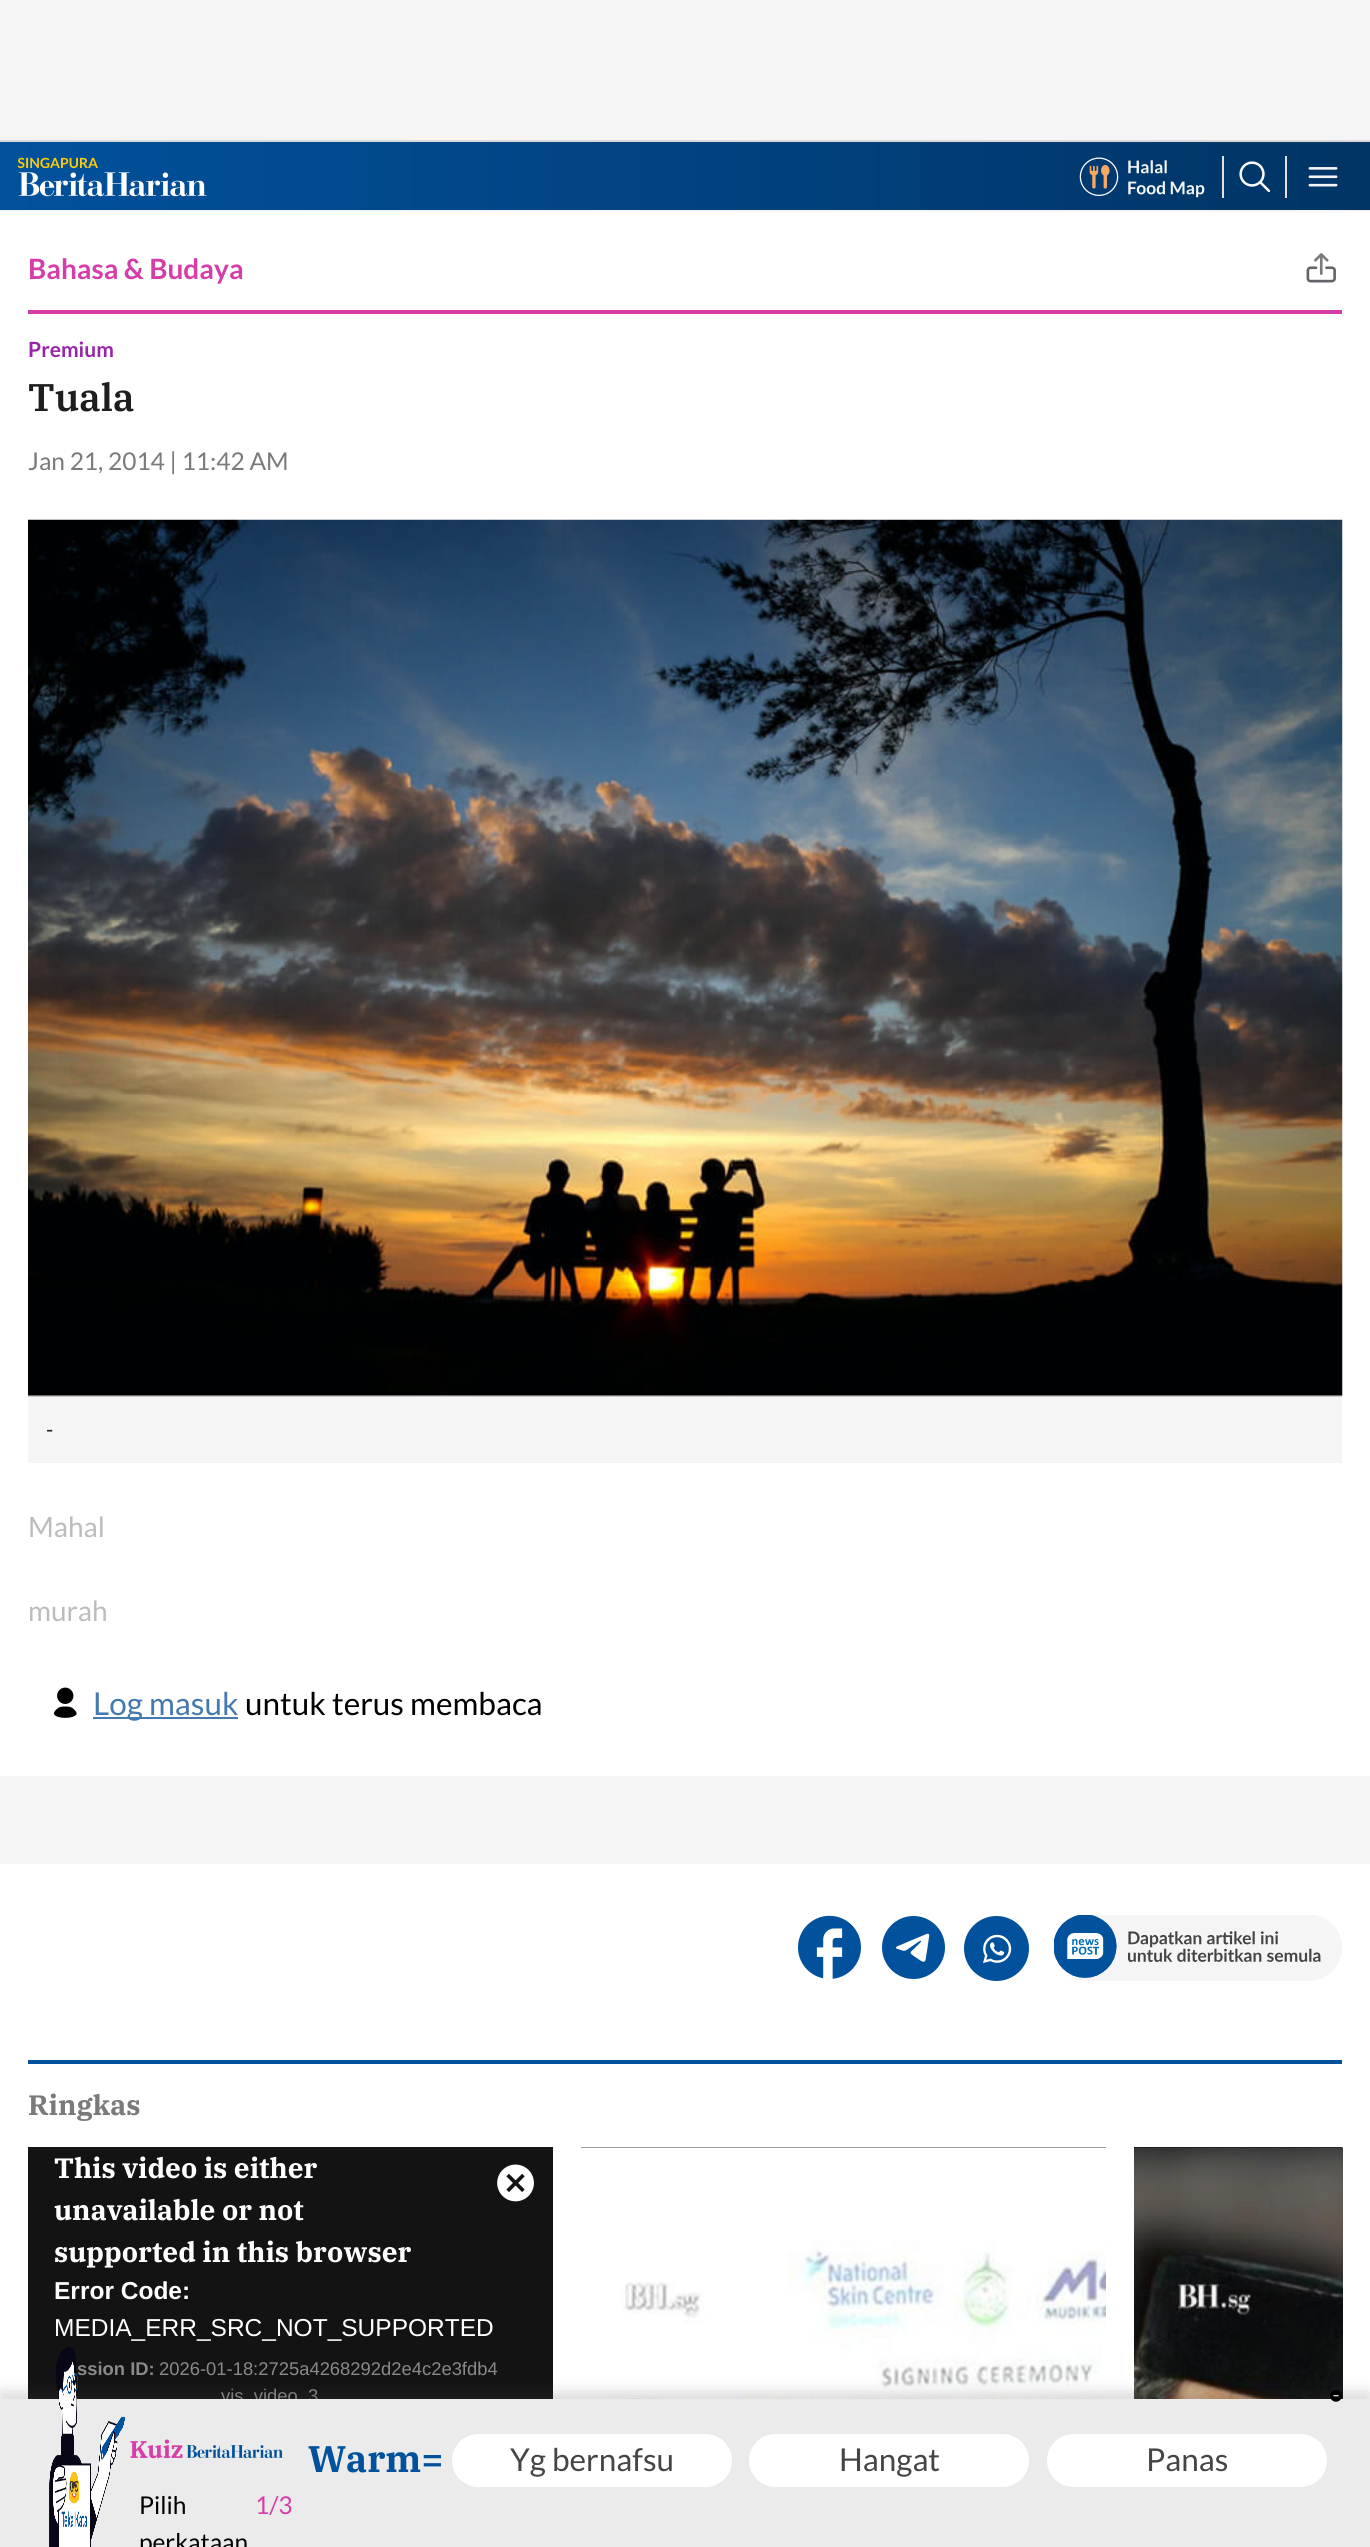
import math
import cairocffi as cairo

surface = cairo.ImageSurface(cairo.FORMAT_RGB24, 1370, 2547)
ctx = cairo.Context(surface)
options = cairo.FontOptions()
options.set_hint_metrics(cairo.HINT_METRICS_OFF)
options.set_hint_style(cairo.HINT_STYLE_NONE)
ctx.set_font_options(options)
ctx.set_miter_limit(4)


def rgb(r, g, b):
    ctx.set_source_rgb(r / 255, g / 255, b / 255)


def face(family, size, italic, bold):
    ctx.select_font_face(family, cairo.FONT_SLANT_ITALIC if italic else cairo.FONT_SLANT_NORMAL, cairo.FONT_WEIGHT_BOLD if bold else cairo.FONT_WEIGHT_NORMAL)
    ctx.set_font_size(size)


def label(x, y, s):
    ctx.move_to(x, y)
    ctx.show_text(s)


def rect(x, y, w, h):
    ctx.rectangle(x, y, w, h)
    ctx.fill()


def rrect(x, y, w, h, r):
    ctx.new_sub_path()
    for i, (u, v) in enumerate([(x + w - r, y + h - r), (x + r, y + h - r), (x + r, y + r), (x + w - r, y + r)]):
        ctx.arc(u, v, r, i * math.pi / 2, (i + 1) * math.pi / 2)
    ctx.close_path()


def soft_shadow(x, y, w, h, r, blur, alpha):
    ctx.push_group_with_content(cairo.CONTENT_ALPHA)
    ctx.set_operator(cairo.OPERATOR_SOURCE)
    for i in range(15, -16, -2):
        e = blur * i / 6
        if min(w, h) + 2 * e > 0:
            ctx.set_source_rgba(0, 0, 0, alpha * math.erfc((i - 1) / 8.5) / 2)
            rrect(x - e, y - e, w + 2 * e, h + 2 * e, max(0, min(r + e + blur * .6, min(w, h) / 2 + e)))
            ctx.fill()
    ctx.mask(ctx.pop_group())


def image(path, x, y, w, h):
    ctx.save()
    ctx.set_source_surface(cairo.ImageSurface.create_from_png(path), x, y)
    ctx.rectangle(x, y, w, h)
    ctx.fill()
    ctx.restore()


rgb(255, 255, 255)
ctx.paint()
rgb(245, 245, 245)
rect(0, 0, 1370, 140)
rgb(217, 217, 217)
rect(0, 140, 1370, 2)
gradient = cairo.LinearGradient(0, 176, 1370, 176)
gradient.add_color_stop_rgba(0, 0.004, 0.318, 0.612, 1)
gradient.add_color_stop_rgba(1, 0, 0.204, 0.396, 1)
ctx.set_source(gradient)
rect(0, 142, 1370, 68)
image('image0.png', 18, 157, 189, 40)
image('image1.png', 1079, 157, 126, 41)
rgb(225, 225, 225)
rect(1285, 156, 2, 42)
rect(1222, 156, 2, 42)
image('image2.png', 1239, 161, 32, 32)
image('image3.png', 1308, 167, 30, 20)
rgb(245, 245, 245)
rect(0, 210, 1370, 2)
rgb(214, 61, 168)
rect(28, 310, 1314, 4)
face('Lato', 28, 0, 1)
label(28, 279, 'Bahasa & Budaya')
image('image4.png', 1306, 253, 30, 30)
face('Lato', 21, 0, 1)
rgb(151, 36, 169)
label(28, 357, 'Premium')
face('IBM Plex Serif SemiBold', 38.5, 0, 0)
rgb(30, 30, 30)
label(28, 411, 'Tuala')
face('Lato', 24.5, 0, 0)
rgb(122, 122, 122)
label(28, 470, 'Jan 21, 2014 | 11:42 AM')
image('image5.png', 28, 519, 1315, 878)
rgb(245, 245, 245)
rect(28, 1397, 1314, 66)
face('Lato', 21, 0, 0)
rgb(30, 30, 30)
label(46, 1437, '-')
face('Lato', 28, 0, 0)
rgb(188, 188, 188)
label(28, 1537, 'Mahal')
label(28, 1621, 'murah')
image('image6.png', 53, 1687, 24, 31)
rgb(68, 122, 178)
rect(93, 1717, 145, 2)
face('Lato', 31.5, 0, 0)
label(93, 1715, 'Log masuk')
rgb(0, 0, 0)
label(245, 1715, 'untuk terus membaca')
rgb(245, 245, 245)
rect(0, 1776, 1370, 88)
image('image7.png', 798, 1915, 63, 64)
image('image8.png', 882, 1916, 63, 63)
image('image9.png', 964, 1916, 65, 65)
image('image10.png', 1054, 1915, 288, 66)
rgb(1, 81, 156)
rect(28, 2060, 1314, 4)
face('IBM Plex Serif', 28, 0, 1)
rgb(122, 122, 122)
label(28, 2115, 'Ringkas')
rgb(19, 19, 19)
rect(28, 2147, 525, 252)
rgb(255, 255, 255)
label(54, 2178, 'This video is either')
label(54, 2220, 'unavailable or not')
label(54, 2262, 'supported in this browser')
face('Liberation Sans', 24.5, 0, 1)
label(54, 2299, 'Error Code:')
face('Liberation Sans', 24.5, 0, 0)
label(54, 2336, 'MEDIA_ERR_SRC_NOT_SUPPORTED')
face('Liberation Sans', 18.4, 0, 1)
rgb(137, 137, 137)
label(77, 2375, 'ssion ID:')
face('Liberation Sans', 18.4, 0, 0)
label(159, 2375, '2026-01-18:2725a4268292d2e4c2e3fdb4')
label(221, 2402, 'vjs_video_3')
image('image11.png', 497, 2164, 37, 38)
rgb(0, 0, 0)
rect(581, 2147, 525, 1)
image('image12.png', 581, 2147, 525, 252)
rect(1134, 2147, 208, 1)
image('image13.png', 1134, 2147, 209, 252)
rgb(69, 69, 69)
soft_shadow(0, 2392, 1370, 149, 0, 7, 0.2)
rgb(235, 235, 235)
rect(0, 2399, 1370, 148)
image('image14.png', 49, 2347, 77, 200)
image('image15.png', 1330, 2389, 12, 13)
face('IBM Plex Serif', 37, 0, 1)
rgb(1, 81, 156)
label(308, 2472, 'Warm=')
rgb(255, 255, 255)
rrect(452, 2434, 280, 53, 26.5)
ctx.fill()
face('Lato', 31.5, 0, 0)
rgb(69, 69, 69)
label(510, 2471, 'Yg bernafsu')
rgb(255, 255, 255)
rrect(749, 2434, 280, 53, 26.5)
ctx.fill()
rgb(69, 69, 69)
label(839, 2471, 'Hangat')
rgb(255, 255, 255)
rrect(1047, 2434, 280, 53, 26.5)
ctx.fill()
rgb(69, 69, 69)
label(1146, 2471, 'Panas')
image('image16.png', 130, 2439, 154, 20)
face('Lato', 24.5, 0, 0)
rgb(0, 0, 0)
label(139, 2514, 'Pilih')
label(139, 2551, 'perkataan')
rgb(214, 61, 168)
label(255, 2514, '1/3')
surface.write_to_png('render.png')
